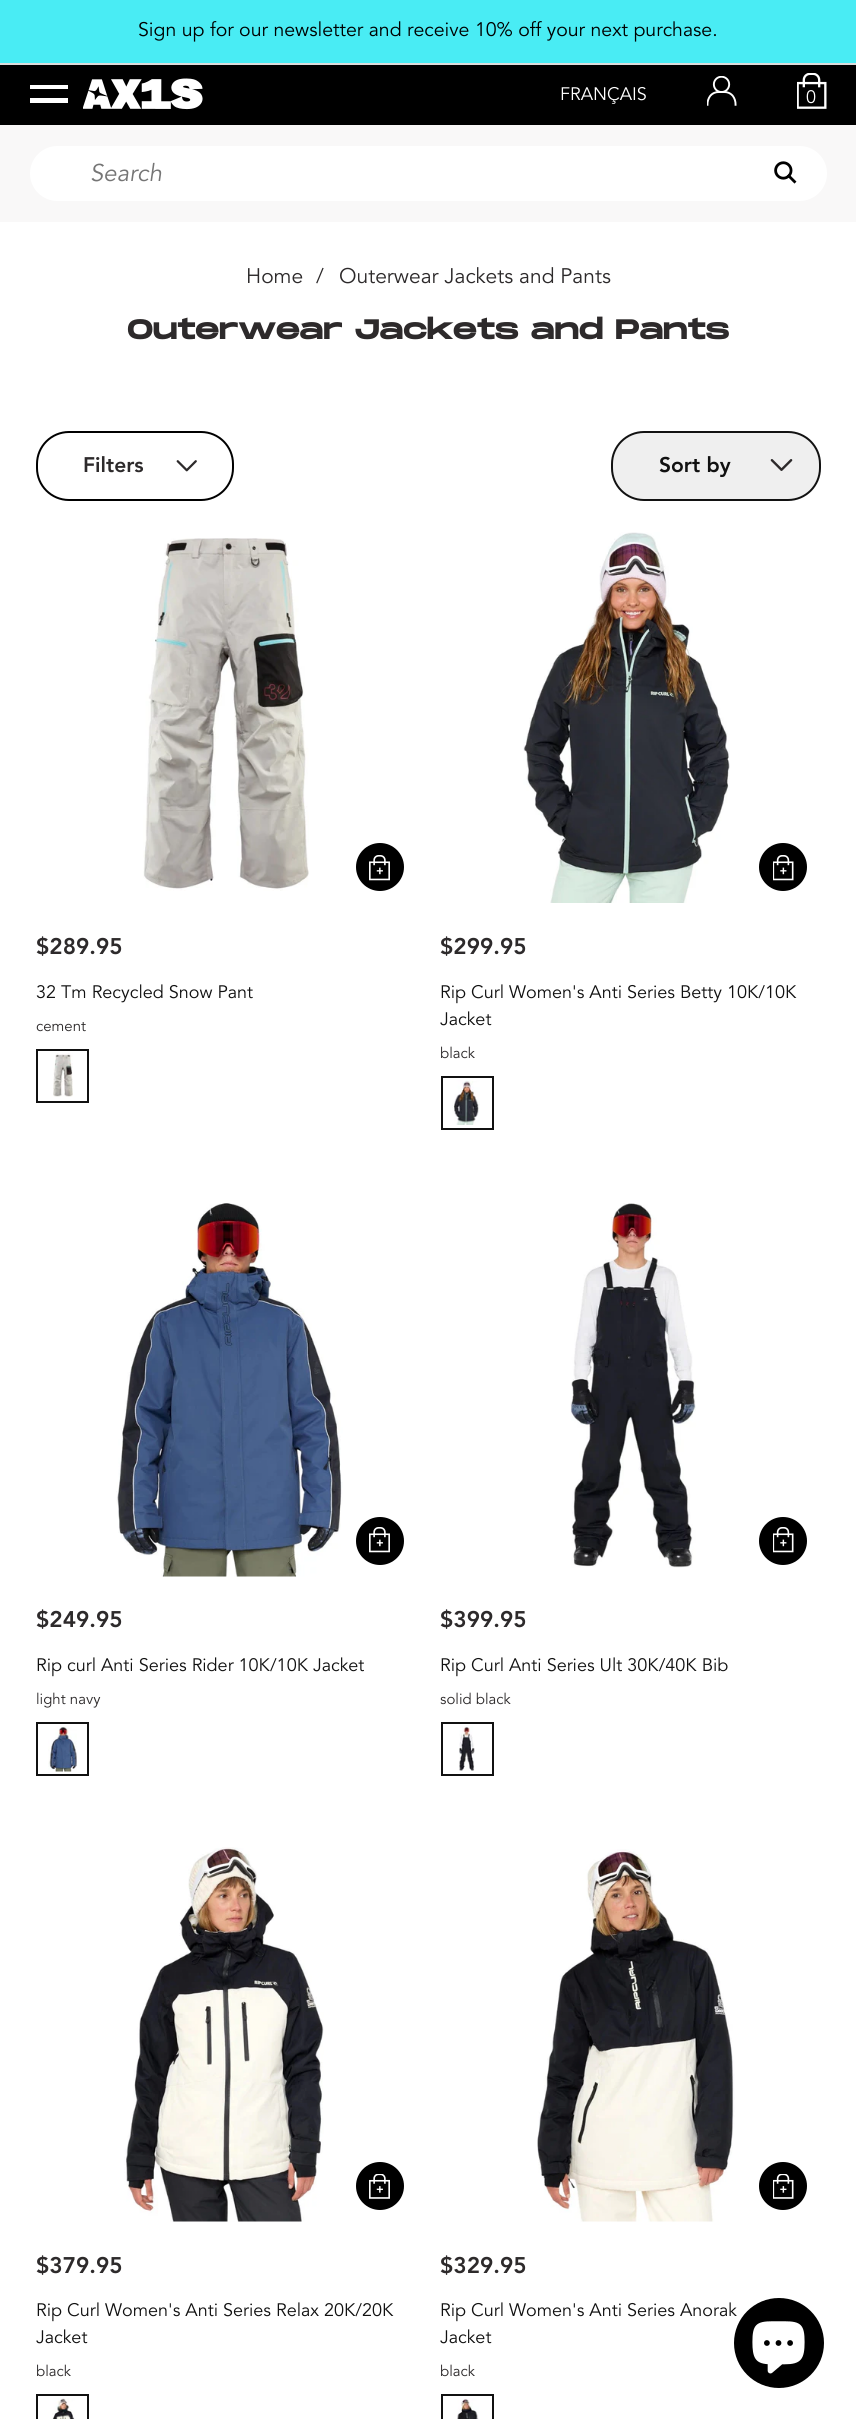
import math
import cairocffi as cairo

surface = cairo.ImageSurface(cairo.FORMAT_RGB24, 856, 2419)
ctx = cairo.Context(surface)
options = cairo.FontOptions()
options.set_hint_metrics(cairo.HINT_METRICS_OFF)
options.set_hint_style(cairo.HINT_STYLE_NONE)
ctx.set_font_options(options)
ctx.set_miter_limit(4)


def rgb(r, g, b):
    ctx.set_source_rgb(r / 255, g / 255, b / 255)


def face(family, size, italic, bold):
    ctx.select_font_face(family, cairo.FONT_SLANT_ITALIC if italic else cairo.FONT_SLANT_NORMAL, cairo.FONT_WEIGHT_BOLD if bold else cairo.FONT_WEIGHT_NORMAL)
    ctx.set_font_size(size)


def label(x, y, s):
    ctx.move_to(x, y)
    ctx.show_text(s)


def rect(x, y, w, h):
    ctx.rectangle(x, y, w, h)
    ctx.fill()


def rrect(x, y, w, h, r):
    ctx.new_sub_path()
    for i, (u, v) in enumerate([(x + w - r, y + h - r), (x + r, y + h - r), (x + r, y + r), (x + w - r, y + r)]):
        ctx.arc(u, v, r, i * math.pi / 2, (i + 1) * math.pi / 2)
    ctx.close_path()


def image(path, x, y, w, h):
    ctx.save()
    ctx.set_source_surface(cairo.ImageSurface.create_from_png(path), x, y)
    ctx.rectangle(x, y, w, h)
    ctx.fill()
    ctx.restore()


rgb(255, 255, 255)
ctx.paint()
rgb(73, 236, 244)
rect(0, 0, 856, 63)
rgb(221, 221, 221)
rect(0, 63, 856, 2)
face('Avenir', 19.5, 0, 0)
rgb(0, 0, 0)
label(138, 36, 'Sign up for our newsletter and receive 10% off your next purchase.')
rect(0, 65, 856, 60)
rgb(255, 255, 255)
rect(30, 85, 38, 4)
rect(30, 98, 38, 5)
image('image0.png', 83, 78, 120, 32)
face('Avenir', 18, 0, 0)
label(560, 100, 'FRANÇAIS')
image('image1.png', 707, 76, 30, 30)
image('image2.png', 797, 73, 30, 36)
label(806, 103, '0')
rgb(249, 248, 248)
rect(0, 125, 856, 97)
rgb(255, 255, 255)
rrect(30, 146, 797, 55, 27.5)
ctx.fill()
face('Avenir', 24, 1, 0)
rgb(117, 117, 117)
label(90, 181, 'Search')
image('image3.png', 774, 161, 23, 23)
face('Avenir', 21, 0, 0)
rgb(45, 42, 43)
label(246, 283, 'Home')
label(316, 283, '/')
label(339, 283, 'Outerwear Jackets and Pants')
face('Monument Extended', 27, 0, 1)
label(127, 339, 'Outerwear Jackets and Pants')
rrect(37, 432, 196, 68, 32)
rgb(0, 0, 0)
ctx.stroke()
face('Avenir Black', 21, 0, 0)
rgb(45, 42, 43)
label(83, 472, 'Filters')
image('image4.png', 176, 460, 21, 12)
rgb(239, 239, 239)
rrect(612, 432, 208, 68, 32)
ctx.fill_preserve()
rgb(18, 18, 18)
ctx.stroke()
rgb(17, 17, 17)
label(659, 472, 'Sort by')
image('image5.png', 770, 459, 23, 12)
image('image6.png', 143, 538, 166, 353)
rgb(0, 0, 0)
ctx.arc(380, 867, 24, 0, 2 * math.pi)
ctx.fill()
image('image7.png', 369, 855, 21, 26)
face('Avenir Black', 22.5, 0, 0)
rgb(45, 42, 43)
label(36, 954, '$289.95')
face('Avenir', 18, 0, 0)
rgb(17, 17, 17)
label(36, 998, '32 Tm Recycled Snow Pant')
face('Avenir', 15, 0, 0)
rgb(45, 42, 43)
label(36, 1031, 'cement')
ctx.rectangle(37, 1050, 51, 52)
rgb(17, 17, 17)
ctx.stroke()
image('image8.png', 53, 1053, 20, 44)
image('image9.png', 523, 532, 207, 371)
rgb(0, 0, 0)
ctx.arc(783, 867, 24, 0, 2 * math.pi)
ctx.fill()
image('image10.png', 773, 855, 21, 26)
face('Avenir Black', 22.5, 0, 0)
rgb(45, 42, 43)
label(440, 954, '$299.95')
face('Avenir', 18, 0, 0)
rgb(17, 17, 17)
label(440, 998, 'Rip Curl Women\'s Anti Series Betty 10K/10K')
label(440, 1025, 'Jacket')
face('Avenir', 15, 0, 0)
rgb(45, 42, 43)
label(440, 1058, 'black')
ctx.rectangle(442, 1077, 51, 52)
rgb(17, 17, 17)
ctx.stroke()
image('image11.png', 452, 1080, 28, 45)
image('image12.png', 116, 1203, 227, 374)
rgb(0, 0, 0)
ctx.arc(380, 1541, 24, 0, 2 * math.pi)
ctx.fill()
image('image7.png', 369, 1527, 21, 26)
face('Avenir Black', 22.5, 0, 0)
rgb(45, 42, 43)
label(36, 1627, '$249.95')
face('Avenir', 18, 0, 0)
rgb(17, 17, 17)
label(36, 1671, 'Rip curl Anti Series Rider 10K/10K Jacket')
face('Avenir', 15, 0, 0)
rgb(45, 42, 43)
label(36, 1704, 'light navy')
ctx.rectangle(37, 1723, 51, 52)
rgb(17, 17, 17)
ctx.stroke()
image('image13.png', 48, 1726, 29, 46)
image('image14.png', 570, 1203, 126, 365)
rgb(0, 0, 0)
ctx.arc(783, 1541, 24, 0, 2 * math.pi)
ctx.fill()
image('image10.png', 773, 1527, 21, 26)
face('Avenir Black', 22.5, 0, 0)
rgb(45, 42, 43)
label(440, 1627, '$399.95')
face('Avenir', 18, 0, 0)
rgb(17, 17, 17)
label(440, 1671, 'Rip Curl Anti Series Ult 30K/40K Bib')
face('Avenir', 15, 0, 0)
rgb(45, 42, 43)
label(440, 1704, 'solid black')
ctx.rectangle(442, 1723, 51, 52)
rgb(17, 17, 17)
ctx.stroke()
image('image15.png', 459, 1726, 16, 45)
image('image16.png', 124, 1847, 200, 375)
rgb(0, 0, 0)
ctx.arc(380, 2186, 24, 0, 2 * math.pi)
ctx.fill()
image('image17.png', 369, 2174, 21, 25)
face('Avenir Black', 22.5, 0, 0)
rgb(45, 42, 43)
label(36, 2273, '$379.95')
face('Avenir', 18, 0, 0)
rgb(17, 17, 17)
label(36, 2316, 'Rip Curl Women\'s Anti Series Relax 20K/20K')
label(36, 2343, 'Jacket')
face('Avenir', 15, 0, 0)
rgb(45, 42, 43)
label(36, 2376, 'black')
ctx.rectangle(37, 2395, 51, 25)
rgb(17, 17, 17)
ctx.stroke()
image('image18.png', 52, 2398, 23, 21)
image('image19.png', 537, 1849, 198, 373)
rgb(0, 0, 0)
ctx.arc(783, 2186, 24, 0, 2 * math.pi)
ctx.fill()
image('image20.png', 773, 2174, 21, 25)
face('Avenir Black', 22.5, 0, 0)
rgb(45, 42, 43)
label(440, 2273, '$329.95')
face('Avenir', 18, 0, 0)
rgb(17, 17, 17)
label(440, 2316, 'Rip Curl Women\'s Anti Series Anorak')
label(440, 2343, 'Jacket')
face('Avenir', 15, 0, 0)
rgb(45, 42, 43)
label(440, 2376, 'black')
ctx.rectangle(442, 2395, 51, 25)
rgb(17, 17, 17)
ctx.stroke()
image('image21.png', 457, 2398, 22, 21)
rgb(0, 0, 0)
ctx.arc(779, 2343, 45, 0, 2 * math.pi)
ctx.fill()
image('image22.png', 752, 2321, 53, 53)
surface.write_to_png('render.png')
